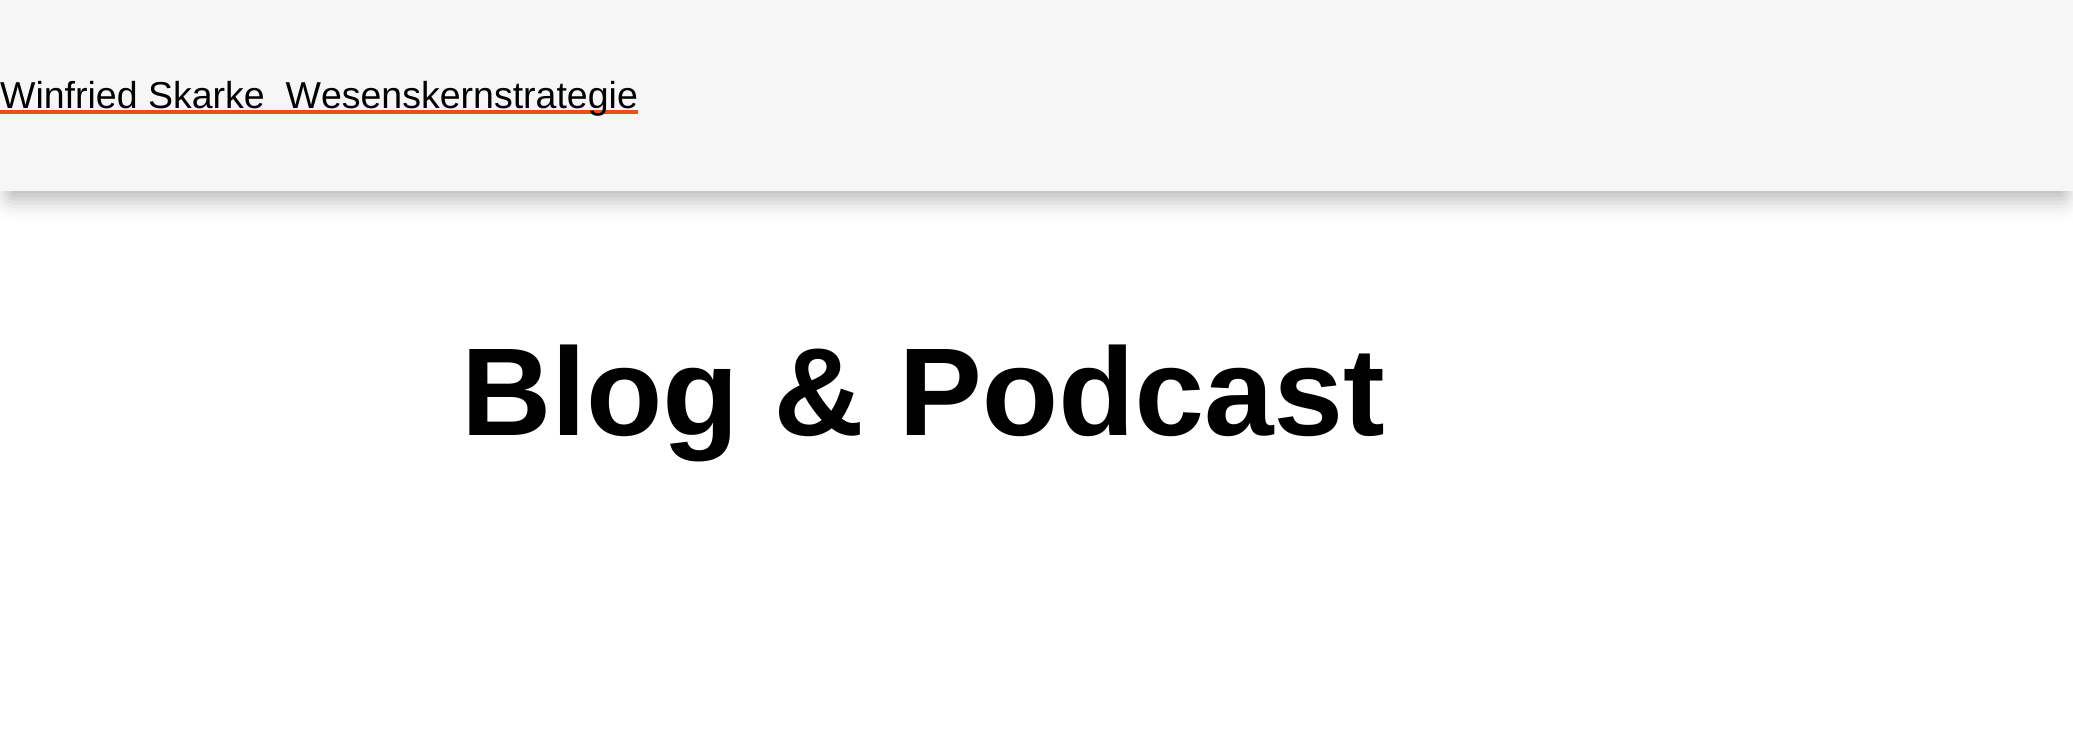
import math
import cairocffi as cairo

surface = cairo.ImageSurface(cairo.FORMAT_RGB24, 2073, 756)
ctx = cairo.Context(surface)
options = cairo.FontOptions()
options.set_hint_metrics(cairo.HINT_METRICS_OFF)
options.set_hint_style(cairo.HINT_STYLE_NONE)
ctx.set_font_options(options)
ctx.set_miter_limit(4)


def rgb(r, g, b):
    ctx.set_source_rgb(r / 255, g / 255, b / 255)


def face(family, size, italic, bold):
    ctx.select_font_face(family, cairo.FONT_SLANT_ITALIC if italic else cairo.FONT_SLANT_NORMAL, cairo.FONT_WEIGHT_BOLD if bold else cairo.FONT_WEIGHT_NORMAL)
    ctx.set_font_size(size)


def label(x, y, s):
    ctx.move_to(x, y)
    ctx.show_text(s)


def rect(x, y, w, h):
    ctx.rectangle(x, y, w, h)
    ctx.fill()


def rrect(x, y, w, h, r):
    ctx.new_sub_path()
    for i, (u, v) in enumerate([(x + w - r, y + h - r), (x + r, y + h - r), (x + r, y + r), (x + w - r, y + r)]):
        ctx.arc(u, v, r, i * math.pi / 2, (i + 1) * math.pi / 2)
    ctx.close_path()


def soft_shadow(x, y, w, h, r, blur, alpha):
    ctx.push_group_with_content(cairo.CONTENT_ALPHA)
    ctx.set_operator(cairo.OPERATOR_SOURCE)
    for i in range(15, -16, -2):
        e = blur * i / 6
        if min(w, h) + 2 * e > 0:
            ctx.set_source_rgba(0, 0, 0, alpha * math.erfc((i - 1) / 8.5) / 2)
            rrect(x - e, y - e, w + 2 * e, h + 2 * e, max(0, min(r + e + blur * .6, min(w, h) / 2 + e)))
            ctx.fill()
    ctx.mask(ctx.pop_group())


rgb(255, 255, 255)
ctx.paint()
rgb(0, 0, 0)
soft_shadow(8, 21, 2058, 178, 0, 11, 0.3)
rgb(246, 246, 246)
rect(0, 0, 2073, 191)
rgb(231, 79, 20)
rect(0, 110, 638, 4)
face('Liberation Sans', 37.5, 0, 0)
rgb(0, 0, 0)
label(0, 108, 'Winfried Skarke  Wesenskernstrategie')
face('Liberation Sans', 125, 0, 1)
label(461, 435, 'Blog & Podcast')
surface.write_to_png('render.png')
